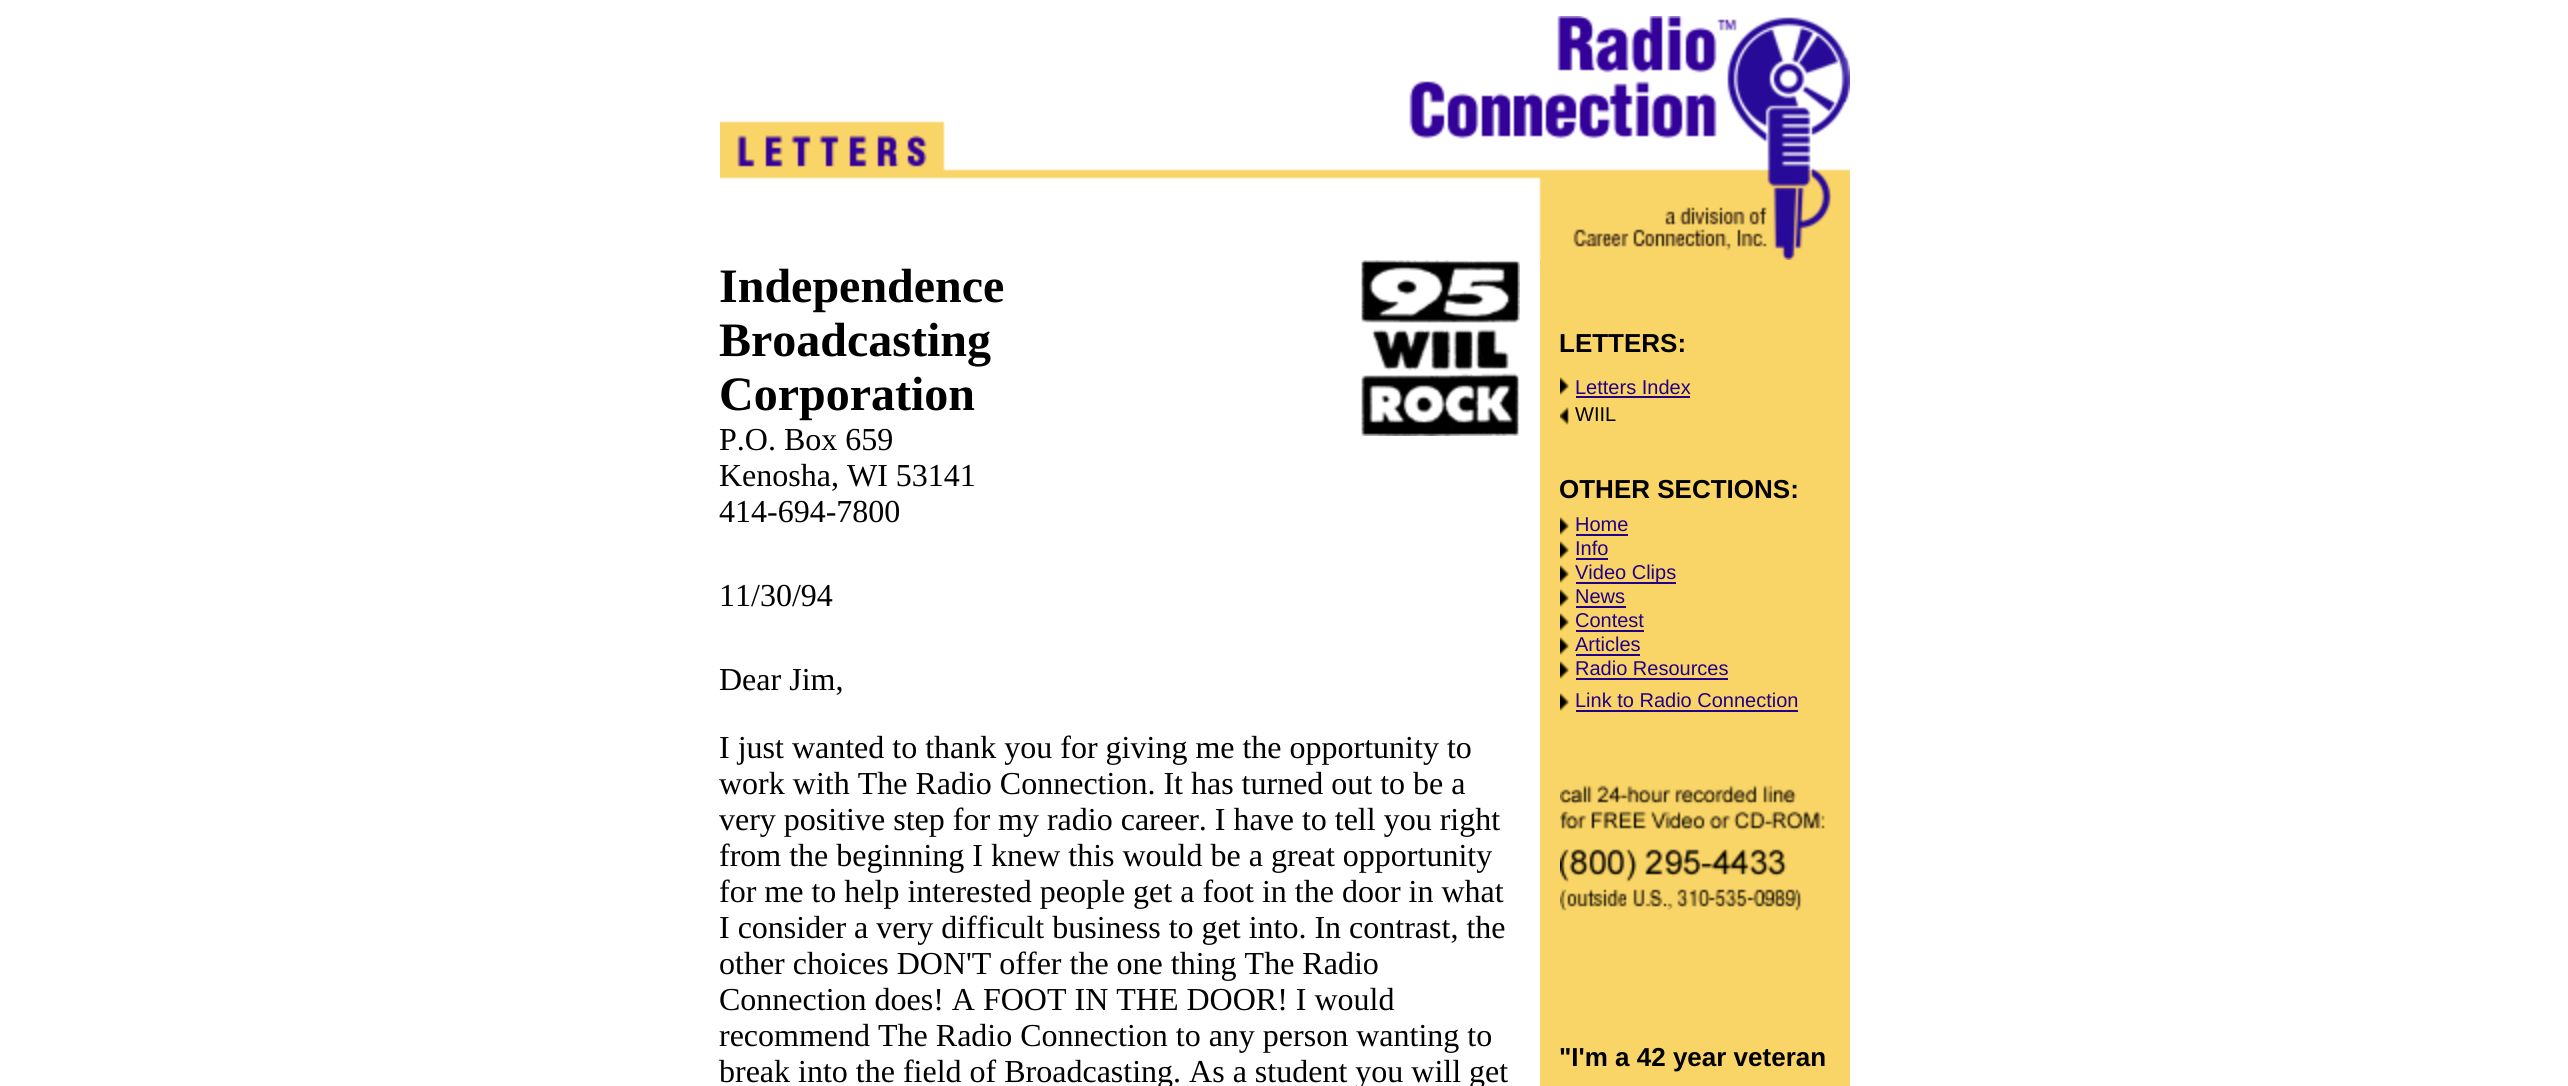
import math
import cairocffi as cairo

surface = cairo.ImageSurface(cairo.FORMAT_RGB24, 2568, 1086)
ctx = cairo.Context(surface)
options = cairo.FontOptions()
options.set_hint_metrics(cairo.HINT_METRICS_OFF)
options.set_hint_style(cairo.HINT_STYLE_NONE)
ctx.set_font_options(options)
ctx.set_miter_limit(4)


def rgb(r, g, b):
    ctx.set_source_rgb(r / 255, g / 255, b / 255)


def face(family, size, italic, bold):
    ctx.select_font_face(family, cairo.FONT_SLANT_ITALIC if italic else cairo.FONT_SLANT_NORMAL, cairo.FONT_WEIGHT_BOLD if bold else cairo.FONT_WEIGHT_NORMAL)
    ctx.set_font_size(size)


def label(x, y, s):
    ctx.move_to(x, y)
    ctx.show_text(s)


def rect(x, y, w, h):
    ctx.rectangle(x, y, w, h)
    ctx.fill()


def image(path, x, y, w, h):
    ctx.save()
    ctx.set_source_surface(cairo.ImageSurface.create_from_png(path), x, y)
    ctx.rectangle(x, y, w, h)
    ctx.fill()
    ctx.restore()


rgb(255, 255, 255)
ctx.paint()
rgb(249, 212, 102)
rect(720, 121, 1130, 139)
image('image0.png', 720, 16, 506, 244)
image('image1.png', 1226, 16, 624, 244)
face('Liberation Serif', 48, 0, 1)
rgb(0, 0, 0)
label(719, 302, 'Independence')
label(719, 356, 'Broadcasting')
label(719, 410, 'Corporation')
face('Liberation Serif', 32, 0, 0)
label(719, 450, 'P.O. Box 659')
label(719, 486, 'Kenosha, WI 53141')
label(719, 522, '414-694-7800')
label(719, 606, '11/30/94')
label(719, 690, 'Dear Jim,')
image('image2.png', 1360, 260, 160, 176)
label(719, 758, 'I just wanted to thank you for giving me the opportunity to')
label(719, 794, 'work with The Radio Connection. It has turned out to be a')
label(719, 830, 'very positive step for my radio career. I have to tell you right')
label(719, 866, 'from the beginning I knew this would be a great opportunity')
label(719, 902, 'for me to help interested people get a foot in the door in what')
label(719, 938, 'I consider a very difficult business to get into. In contrast, the')
label(719, 974, 'other choices DON\'T offer the one thing The Radio')
label(719, 1010, 'Connection does! A FOOT IN THE DOOR! I would')
label(719, 1046, 'recommend The Radio Connection to any person wanting to')
label(719, 1082, 'break into the field of Broadcasting. As a student you will get')
rgb(249, 212, 102)
rect(1540, 260, 310, 826)
face('Liberation Sans', 26, 0, 1)
rgb(0, 0, 0)
label(1559, 352, 'LETTERS:')
image('image3.png', 1560, 377, 9, 18)
face('Liberation Sans', 20, 0, 0)
rgb(34, 0, 136)
label(1575, 394, 'Letters Index')
rect(1576, 396, 114, 2)
image('image4.png', 1560, 407, 9, 18)
rgb(0, 0, 0)
label(1575, 421, 'WIIL')
face('Liberation Sans', 26, 0, 1)
label(1559, 498, 'OTHER SECTIONS:')
image('image3.png', 1560, 517, 9, 18)
face('Liberation Sans', 20, 0, 0)
rgb(34, 0, 136)
label(1575, 531, 'Home')
rect(1576, 534, 52, 2)
image('image3.png', 1560, 541, 9, 18)
label(1575, 555, 'Info')
rect(1576, 558, 32, 2)
image('image3.png', 1560, 565, 9, 18)
rect(1576, 582, 100, 2)
label(1575, 579, 'Video Clips')
image('image3.png', 1560, 589, 9, 18)
label(1575, 603, 'News')
rect(1576, 606, 50, 2)
image('image3.png', 1560, 613, 9, 18)
label(1575, 627, 'Contest')
rect(1576, 630, 68, 2)
image('image3.png', 1560, 637, 9, 18)
label(1575, 651, 'Articles')
rect(1576, 654, 64, 2)
image('image3.png', 1560, 661, 9, 18)
label(1575, 675, 'Radio Resources')
rect(1576, 678, 152, 2)
image('image3.png', 1560, 693, 9, 18)
label(1575, 707, 'Link to Radio Connection')
rect(1576, 710, 222, 2)
image('image5.png', 1560, 785, 265, 126)
face('Liberation Sans', 26, 0, 1)
rgb(0, 0, 0)
label(1559, 1066, '"I\'m a 42 year veteran')
surface.write_to_png('render.png')
